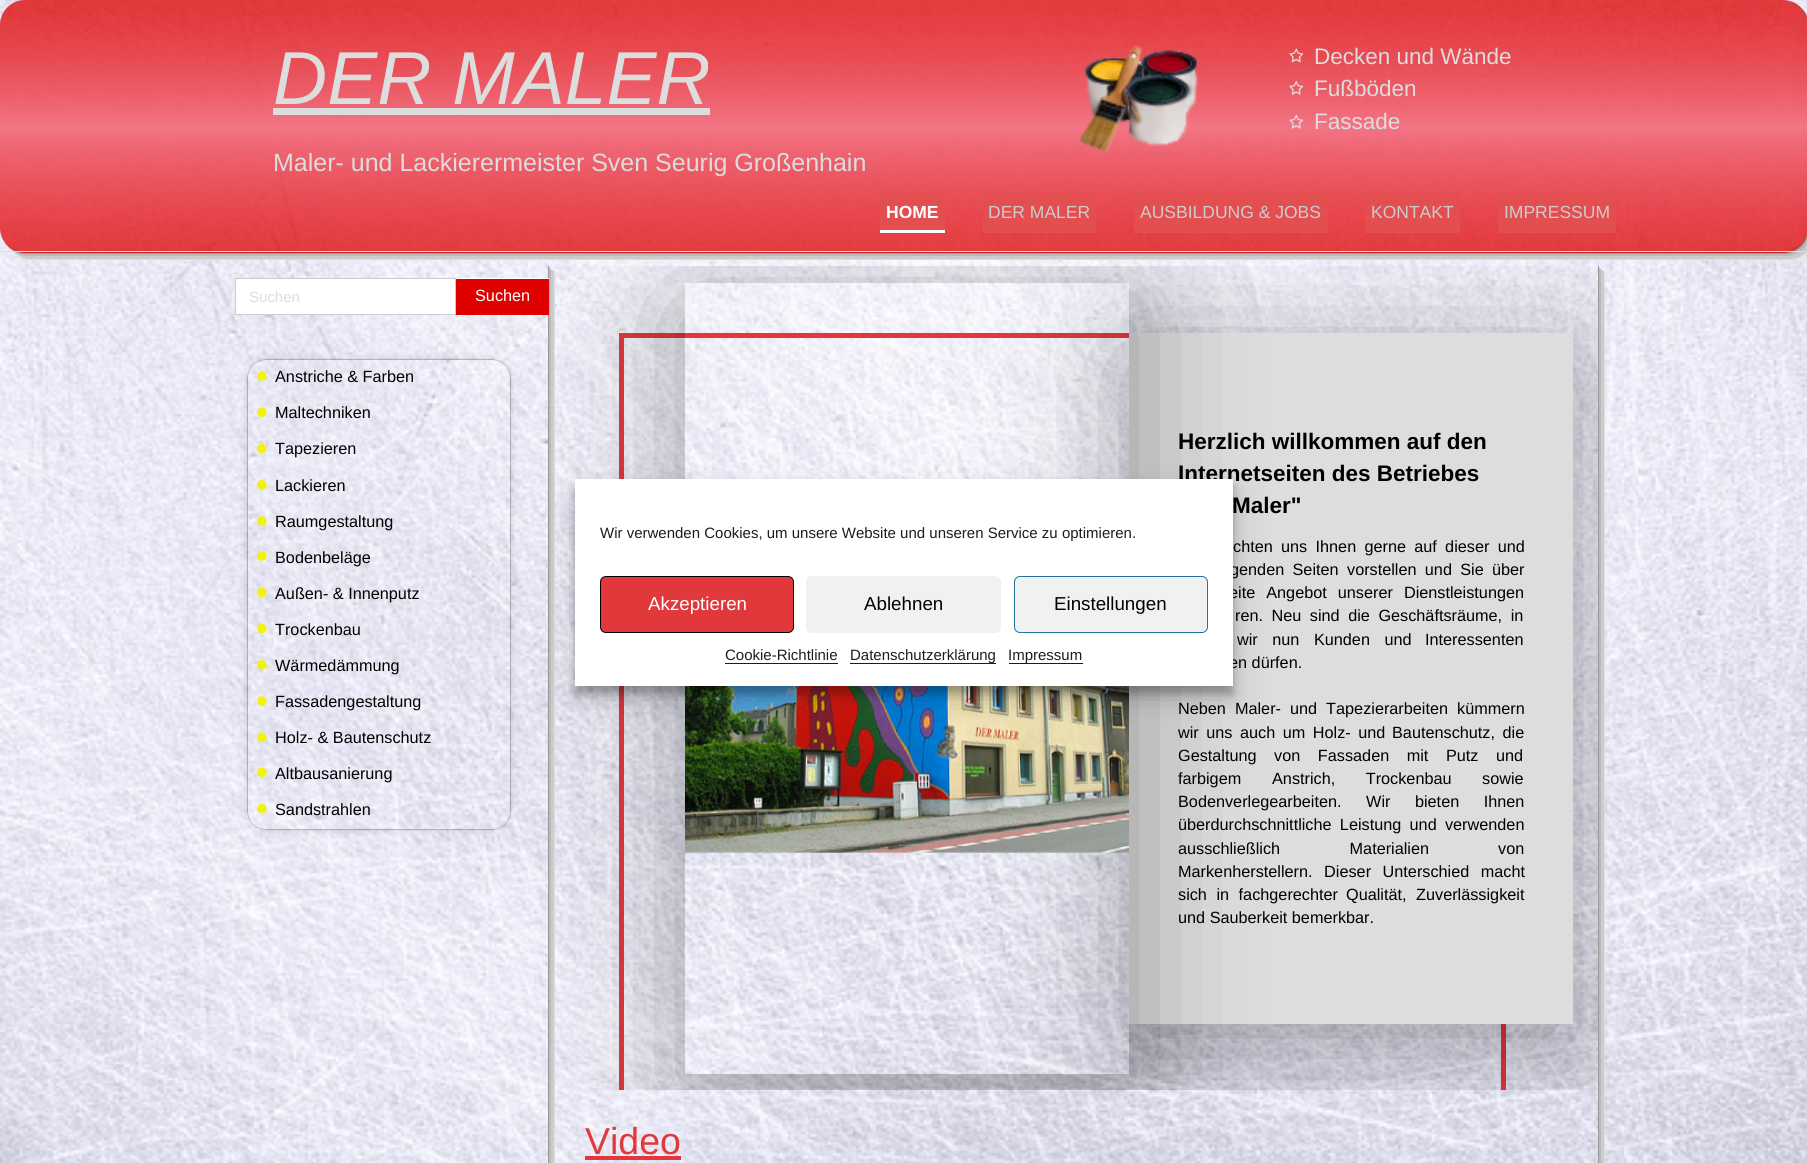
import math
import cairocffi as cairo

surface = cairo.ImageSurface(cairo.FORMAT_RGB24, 1807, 1163)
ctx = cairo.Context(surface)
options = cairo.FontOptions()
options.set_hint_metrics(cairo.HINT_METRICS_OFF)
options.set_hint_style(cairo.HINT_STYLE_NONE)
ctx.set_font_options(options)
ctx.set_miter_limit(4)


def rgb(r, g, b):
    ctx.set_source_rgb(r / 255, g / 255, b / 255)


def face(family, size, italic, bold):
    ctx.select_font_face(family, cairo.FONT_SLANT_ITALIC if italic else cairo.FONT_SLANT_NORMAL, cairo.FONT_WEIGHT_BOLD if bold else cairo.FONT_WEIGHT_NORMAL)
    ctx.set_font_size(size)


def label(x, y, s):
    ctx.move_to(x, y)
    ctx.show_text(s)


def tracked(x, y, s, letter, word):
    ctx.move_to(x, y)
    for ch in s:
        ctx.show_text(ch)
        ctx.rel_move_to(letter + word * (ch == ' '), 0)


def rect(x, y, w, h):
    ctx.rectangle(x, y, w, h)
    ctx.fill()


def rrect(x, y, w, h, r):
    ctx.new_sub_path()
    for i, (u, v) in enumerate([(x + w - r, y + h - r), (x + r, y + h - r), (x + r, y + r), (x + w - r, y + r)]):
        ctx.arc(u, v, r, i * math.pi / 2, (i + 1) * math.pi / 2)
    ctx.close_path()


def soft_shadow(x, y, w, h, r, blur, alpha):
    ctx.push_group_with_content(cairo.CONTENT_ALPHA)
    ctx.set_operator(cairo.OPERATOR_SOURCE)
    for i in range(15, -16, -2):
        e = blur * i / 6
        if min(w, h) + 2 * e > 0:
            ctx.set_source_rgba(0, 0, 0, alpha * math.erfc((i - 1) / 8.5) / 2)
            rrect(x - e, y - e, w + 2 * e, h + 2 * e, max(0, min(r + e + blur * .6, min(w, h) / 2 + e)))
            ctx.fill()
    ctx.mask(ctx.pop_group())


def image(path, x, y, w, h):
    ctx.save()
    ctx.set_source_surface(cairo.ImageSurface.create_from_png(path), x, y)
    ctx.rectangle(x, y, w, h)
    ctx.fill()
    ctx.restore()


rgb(255, 255, 255)
ctx.paint()
image('image0.png', 0, 0, 1807, 1163)
rgb(222, 222, 222)
ctx.new_path()
ctx.move_to(12, 249)
ctx.curve_to(17, 256, 24, 260, 33, 260)
ctx.line_to(1790, 260)
ctx.curve_to(1804, 260, 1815, 249, 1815, 235)
ctx.line_to(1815, 33)
ctx.curve_to(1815, 24, 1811, 17, 1804, 12)
ctx.curve_to(1806, 16, 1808, 20, 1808, 25)
ctx.line_to(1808, 228)
ctx.curve_to(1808, 241, 1796, 252, 1782, 252)
ctx.line_to(25, 252)
ctx.curve_to(20, 252, 16, 251, 12, 249)
ctx.close_path()
ctx.fill()
rgb(204, 204, 204)
ctx.new_path()
ctx.move_to(10, 247)
ctx.curve_to(14, 254, 22, 259, 31, 259)
ctx.line_to(1789, 259)
ctx.curve_to(1803, 259, 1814, 248, 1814, 234)
ctx.line_to(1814, 31)
ctx.curve_to(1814, 22, 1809, 14, 1802, 10)
ctx.curve_to(1806, 14, 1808, 19, 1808, 25)
ctx.line_to(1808, 228)
ctx.curve_to(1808, 241, 1796, 252, 1782, 252)
ctx.line_to(25, 252)
ctx.curve_to(19, 252, 14, 251, 10, 247)
ctx.close_path()
ctx.fill()
ctx.new_path()
ctx.move_to(9, 247)
ctx.curve_to(14, 254, 21, 258, 30, 258)
ctx.line_to(1788, 258)
ctx.curve_to(1802, 258, 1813, 247, 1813, 233)
ctx.line_to(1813, 30)
ctx.curve_to(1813, 21, 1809, 14, 1802, 9)
ctx.curve_to(1805, 14, 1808, 19, 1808, 25)
ctx.line_to(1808, 228)
ctx.curve_to(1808, 241, 1796, 252, 1782, 252)
ctx.line_to(25, 252)
ctx.curve_to(19, 252, 14, 250, 9, 247)
ctx.close_path()
ctx.fill()
rgb(186, 186, 186)
ctx.new_path()
ctx.move_to(11, 248)
ctx.curve_to(15, 253, 22, 256, 29, 256)
ctx.line_to(1786, 256)
ctx.curve_to(1800, 256, 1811, 245, 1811, 231)
ctx.line_to(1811, 29)
ctx.curve_to(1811, 22, 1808, 15, 1803, 11)
ctx.curve_to(1806, 15, 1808, 20, 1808, 25)
ctx.line_to(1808, 228)
ctx.curve_to(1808, 241, 1796, 252, 1782, 252)
ctx.line_to(25, 252)
ctx.curve_to(20, 252, 15, 251, 11, 248)
ctx.close_path()
ctx.fill()
ctx.new_path()
ctx.move_to(11, 248)
ctx.curve_to(15, 252, 21, 255, 28, 255)
ctx.line_to(1785, 255)
ctx.curve_to(1799, 255, 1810, 244, 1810, 230)
ctx.line_to(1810, 28)
ctx.curve_to(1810, 21, 1807, 15, 1803, 11)
ctx.curve_to(1806, 15, 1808, 20, 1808, 25)
ctx.line_to(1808, 228)
ctx.curve_to(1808, 241, 1796, 252, 1782, 252)
ctx.line_to(25, 252)
ctx.curve_to(20, 252, 15, 251, 11, 248)
ctx.close_path()
ctx.fill()
rgb(153, 153, 153)
ctx.new_path()
ctx.move_to(5, 242)
ctx.curve_to(9, 249, 17, 254, 26, 254)
ctx.line_to(1784, 254)
ctx.curve_to(1798, 254, 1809, 243, 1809, 229)
ctx.line_to(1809, 26)
ctx.curve_to(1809, 17, 1804, 9, 1797, 5)
ctx.curve_to(1803, 9, 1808, 17, 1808, 25)
ctx.line_to(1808, 228)
ctx.curve_to(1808, 241, 1796, 252, 1782, 252)
ctx.line_to(25, 252)
ctx.curve_to(17, 252, 9, 248, 5, 242)
ctx.close_path()
ctx.fill()
gradient = cairo.LinearGradient(904, 0, 904, 253)
gradient.add_color_stop_rgba(0.04, 0.875, 0, 0, 0.75)
gradient.add_color_stop_rgba(0.5, 0.949, 0.455, 0.522, 1)
gradient.add_color_stop_rgba(1, 0.875, 0, 0, 0.75)
ctx.set_source(gradient)
rrect(0, 0, 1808, 253, 25)
ctx.fill()
face('Liberation Sans', 75, 1, 0)
rgb(221, 221, 221)
label(273, 104, 'DER MALER')
rect(273, 108, 437, 7)
face('Liberation Sans', 25, 0, 0)
label(273, 171, 'Maler- und Lackierermeister Sven Seurig Großenhain')
image('image1.png', 1078, 45, 121, 108)
image('image2.png', 1289, 48, 15, 15)
face('Liberation Sans', 22.5, 0, 0)
label(1314, 64, 'Decken und Wände')
image('image3.png', 1289, 80, 15, 15)
label(1314, 96, 'Fußböden')
image('image4.png', 1289, 114, 15, 15)
label(1314, 129, 'Fassade')
rect(0, 251, 1807, 1)
rgb(227, 79, 81)
rect(880, 193, 65, 37)
rgb(255, 255, 255)
rect(880, 230, 65, 3)
face('Liberation Sans', 17.5, 0, 1)
label(886, 218, 'HOME')
rgb(227, 79, 81)
rect(983, 193, 113, 40)
face('Liberation Sans', 17.5, 0, 0)
rgb(204, 204, 204)
label(988, 218, 'DER MALER')
rgb(227, 79, 81)
rect(1134, 193, 194, 40)
rgb(204, 204, 204)
label(1140, 218, 'AUSBILDUNG & JOBS')
rgb(227, 79, 81)
rect(1365, 193, 95, 40)
rgb(204, 204, 204)
label(1371, 218, 'KONTAKT')
rgb(227, 79, 81)
rect(1498, 193, 118, 40)
rgb(204, 204, 204)
label(1504, 218, 'IMPRESSUM')
rgb(222, 222, 222)
ctx.new_path()
ctx.move_to(218, 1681)
ctx.line_to(218, 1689)
ctx.line_to(555, 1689)
ctx.line_to(555, 273)
ctx.line_to(548, 273)
ctx.line_to(548, 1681)
ctx.close_path()
ctx.fill()
rgb(204, 204, 204)
ctx.new_path()
ctx.move_to(216, 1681)
ctx.line_to(216, 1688)
ctx.line_to(554, 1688)
ctx.line_to(554, 271)
ctx.line_to(548, 271)
ctx.line_to(548, 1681)
ctx.close_path()
ctx.fill()
ctx.new_path()
ctx.move_to(215, 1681)
ctx.line_to(215, 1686)
ctx.line_to(553, 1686)
ctx.line_to(553, 270)
ctx.line_to(548, 270)
ctx.line_to(548, 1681)
ctx.close_path()
ctx.fill()
rgb(186, 186, 186)
ctx.new_path()
ctx.move_to(214, 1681)
ctx.line_to(214, 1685)
ctx.line_to(551, 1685)
ctx.line_to(551, 269)
ctx.line_to(548, 269)
ctx.line_to(548, 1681)
ctx.close_path()
ctx.fill()
ctx.new_path()
ctx.move_to(213, 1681)
ctx.line_to(213, 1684)
ctx.line_to(550, 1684)
ctx.line_to(550, 268)
ctx.line_to(548, 268)
ctx.line_to(548, 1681)
ctx.close_path()
ctx.fill()
rgb(153, 153, 153)
ctx.new_path()
ctx.move_to(211, 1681)
ctx.line_to(211, 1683)
ctx.line_to(549, 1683)
ctx.line_to(549, 266)
ctx.line_to(548, 266)
ctx.line_to(548, 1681)
ctx.close_path()
ctx.fill()
rgb(255, 255, 255)
rect(236, 278, 313, 36)
ctx.rectangle(235.5, 278.5, 220, 36)
rgb(204, 204, 204)
ctx.set_line_width(1)
ctx.stroke()
face('Liberation Sans', 15, 0, 0)
rgb(221, 221, 221)
label(249, 302, 'Suchen')
rgb(223, 0, 0)
rect(456, 279, 93, 36)
face('Liberation Sans', 16.25, 0, 0)
rgb(255, 255, 255)
label(475, 301, 'Suchen')
ctx.save()
ctx.set_fill_rule(cairo.FILL_RULE_EVEN_ODD)
ctx.new_path()
ctx.move_to(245, 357)
ctx.line_to(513, 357)
ctx.line_to(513, 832)
ctx.line_to(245, 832)
ctx.close_path()
ctx.move_to(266, 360)
ctx.line_to(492, 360)
ctx.curve_to(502, 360, 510, 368, 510, 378)
ctx.line_to(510, 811)
ctx.curve_to(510, 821, 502, 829, 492, 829)
ctx.line_to(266, 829)
ctx.curve_to(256, 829, 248, 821, 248, 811)
ctx.line_to(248, 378)
ctx.curve_to(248, 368, 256, 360, 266, 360)
ctx.close_path()
ctx.clip()
rgb(51, 51, 51)
soft_shadow(248, 360, 262, 469, 18, 0.5, 1)
ctx.restore()
ctx.save()
ctx.set_fill_rule(cairo.FILL_RULE_EVEN_ODD)
ctx.new_path()
ctx.move_to(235, 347)
ctx.line_to(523, 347)
ctx.line_to(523, 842)
ctx.line_to(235, 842)
ctx.close_path()
ctx.move_to(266, 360)
ctx.line_to(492, 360)
ctx.curve_to(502, 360, 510, 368, 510, 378)
ctx.line_to(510, 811)
ctx.curve_to(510, 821, 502, 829, 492, 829)
ctx.line_to(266, 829)
ctx.curve_to(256, 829, 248, 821, 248, 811)
ctx.line_to(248, 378)
ctx.curve_to(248, 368, 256, 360, 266, 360)
ctx.close_path()
ctx.clip()
rgb(51, 51, 51)
soft_shadow(248, 360, 262, 469, 18, 4, 0.25)
ctx.restore()
image('image5.png', 257, 371, 10, 10)
rgb(0, 0, 0)
label(275, 382, 'Anstriche & Farben')
image('image6.png', 257, 407, 10, 11)
label(275, 418, 'Maltechniken')
image('image7.png', 257, 443, 10, 11)
label(275, 454, 'Tapezieren')
image('image8.png', 257, 480, 10, 10)
label(275, 491, 'Lackieren')
image('image9.png', 257, 516, 10, 10)
label(275, 527, 'Raumgestaltung')
image('image10.png', 257, 551, 10, 10)
label(275, 563, 'Bodenbeläge')
image('image11.png', 257, 587, 10, 11)
label(275, 599, 'Außen- & Innenputz')
image('image12.png', 257, 623, 10, 11)
label(275, 635, 'Trockenbau')
image('image13.png', 257, 660, 10, 10)
label(275, 671, 'Wärmedämmung')
image('image14.png', 257, 696, 10, 10)
label(275, 707, 'Fassadengestaltung')
image('image15.png', 257, 732, 10, 11)
label(275, 743, 'Holz- & Bautenschutz')
image('image16.png', 257, 767, 10, 11)
label(275, 779, 'Altbausanierung')
image('image17.png', 257, 803, 10, 11)
label(275, 815, 'Sandstrahlen')
rgb(222, 222, 222)
ctx.new_path()
ctx.move_to(568, 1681)
ctx.line_to(568, 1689)
ctx.line_to(1605, 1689)
ctx.line_to(1605, 273)
ctx.line_to(1598, 273)
ctx.line_to(1598, 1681)
ctx.close_path()
ctx.fill()
rgb(204, 204, 204)
ctx.new_path()
ctx.move_to(566, 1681)
ctx.line_to(566, 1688)
ctx.line_to(1604, 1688)
ctx.line_to(1604, 271)
ctx.line_to(1598, 271)
ctx.line_to(1598, 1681)
ctx.close_path()
ctx.fill()
ctx.new_path()
ctx.move_to(565, 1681)
ctx.line_to(565, 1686)
ctx.line_to(1603, 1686)
ctx.line_to(1603, 270)
ctx.line_to(1598, 270)
ctx.line_to(1598, 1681)
ctx.close_path()
ctx.fill()
rgb(186, 186, 186)
ctx.new_path()
ctx.move_to(564, 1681)
ctx.line_to(564, 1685)
ctx.line_to(1601, 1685)
ctx.line_to(1601, 269)
ctx.line_to(1598, 269)
ctx.line_to(1598, 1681)
ctx.close_path()
ctx.fill()
ctx.new_path()
ctx.move_to(563, 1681)
ctx.line_to(563, 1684)
ctx.line_to(1600, 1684)
ctx.line_to(1600, 268)
ctx.line_to(1598, 268)
ctx.line_to(1598, 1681)
ctx.close_path()
ctx.fill()
rgb(153, 153, 153)
ctx.new_path()
ctx.move_to(561, 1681)
ctx.line_to(561, 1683)
ctx.line_to(1599, 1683)
ctx.line_to(1599, 266)
ctx.line_to(1598, 266)
ctx.line_to(1598, 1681)
ctx.close_path()
ctx.fill()
ctx.save()
ctx.rectangle(560, 266, 1038, 824)
ctx.clip()
ctx.rectangle(621.5, 335.5, 882, 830)
rgb(224, 56, 59)
ctx.set_line_width(5)
ctx.stroke()
ctx.restore()
ctx.save()
ctx.rectangle(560, 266, 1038, 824)
ctx.clip()
rgb(0, 0, 0)
soft_shadow(1129, 358, 444, 691, 0, 62.5, 0.35)
ctx.restore()
rgb(221, 221, 221)
rect(1129, 333, 444, 691)
ctx.save()
ctx.rectangle(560, 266, 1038, 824)
ctx.clip()
ctx.set_fill_rule(cairo.FILL_RULE_EVEN_ODD)
ctx.new_path()
ctx.move_to(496, 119)
ctx.line_to(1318, 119)
ctx.line_to(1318, 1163)
ctx.line_to(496, 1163)
ctx.close_path()
ctx.move_to(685, 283)
ctx.line_to(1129, 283)
ctx.line_to(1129, 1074)
ctx.line_to(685, 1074)
ctx.close_path()
ctx.clip()
rgb(0, 0, 0)
soft_shadow(685, 308, 444, 791, 0, 62.5, 0.35)
ctx.restore()
image('image18.png', 685, 686, 444, 167)
face('Liberation Sans', 22.5, 0, 1)
rgb(0, 0, 0)
label(1178, 449, 'Herzlich willkommen auf den')
label(1178, 481, 'Internetseiten des Betriebes')
label(1232, 513, 'Maler"')
face('Liberation Sans', 16.25, 0, 0)
tracked(1233, 552, 'chten uns Ihnen gerne auf dieser und', 0, 3.75)
tracked(1230, 575, 'genden Seiten', 0, 3.75)
tracked(1347, 575, 'vorstellen und Sie über', 0, 3.75)
tracked(1229, 598, 'eite Angebot unserer Dienstleistungen', 0, 6.5)
tracked(1235, 621, 'ren. Neu sind die Geschäftsräume, in', 0, 4)
tracked(1237, 645, 'wir nun Kunden und', 0, 10)
label(1425, 645, 'Interessenten')
label(1229, 668, 'en dürfen.')
tracked(1178, 714, 'Neben Maler- und Tapezierarbeiten kümmern', 0, 4.5)
tracked(1178, 738, 'wir uns auch um Holz- und', 0, 3)
tracked(1392, 738, 'Bautenschutz, die', 0, 3)
tracked(1178, 761, 'Gestaltung von Fassaden mit Putz und', 0, 13)
label(1178, 784, 'farbigem')
tracked(1272, 784, 'Anstrich, Trockenbau sowie', 0, 26)
tracked(1178, 807, 'Bodenverlegearbeiten. Wir bieten Ihnen', 0, 20)
tracked(1178, 830, 'überdurchschnittliche Leistung und verwenden', 0, 3.75)
tracked(1178, 854, 'ausschließlich Materialien', 0, 65)
label(1498, 854, 'von')
tracked(1178, 877, 'Markenherstellern. Dieser Unterschied macht', 0, 7)
tracked(1178, 900, 'sich in fachgerechter', 0, 5)
tracked(1346, 900, 'Qualität, Zuverlässigkeit', 0, 5)
label(1178, 923, 'und Sauberkeit bemerkbar.')
face('Liberation Sans', 37.5, 0, 0)
rgb(224, 56, 59)
label(585, 1154, 'Video')
rect(585, 1156, 96, 4)
rgb(0, 0, 0)
soft_shadow(575, 486, 658, 208, 0, 4, 0.23)
soft_shadow(575, 491, 658, 208, 0, 12.5, 0.19)
rgb(255, 255, 255)
rect(575, 479, 658, 207)
face('Liberation Sans', 15, 0, 0)
rgb(25, 30, 35)
label(600, 538, 'Wir verwenden Cookies, um unsere Website und unseren Service zu optimieren.')
rgb(224, 56, 59)
rrect(600.5, 576.5, 193, 56, 5.5)
ctx.fill_preserve()
rgb(0, 0, 0)
ctx.stroke()
face('Liberation Sans', 18.75, 0, 0)
rgb(255, 255, 255)
label(648, 610, 'Akzeptieren')
rgb(241, 241, 241)
rrect(806.5, 576.5, 194, 56, 5.5)
ctx.fill_preserve()
ctx.stroke()
rgb(0, 0, 0)
label(864, 610, 'Ablehnen')
rgb(241, 241, 241)
rrect(1014.5, 576.5, 193, 56, 5.5)
ctx.fill_preserve()
rgb(33, 117, 155)
ctx.stroke()
rgb(0, 0, 0)
label(1054, 610, 'Einstellungen')
face('Liberation Sans', 15, 0, 0)
rgb(25, 30, 35)
label(725, 660, 'Cookie-Richtlinie')
rect(725, 663, 113, 1)
rect(850, 663, 146, 1)
label(850, 660, 'Datenschutzerklärung')
rect(1009, 663, 74, 1)
label(1008, 660, 'Impressum')
surface.write_to_png('render.png')
